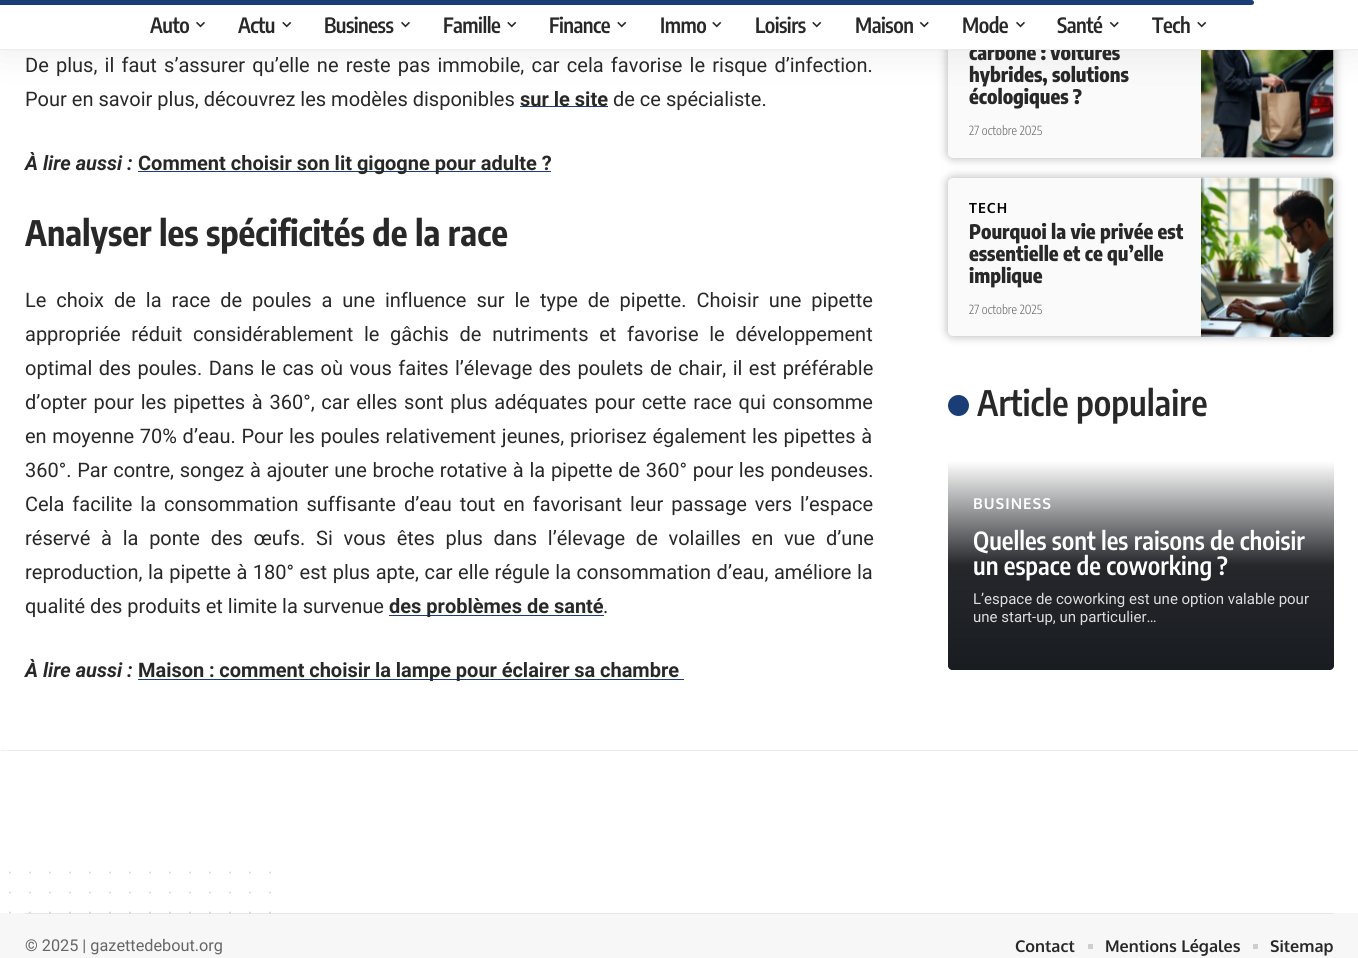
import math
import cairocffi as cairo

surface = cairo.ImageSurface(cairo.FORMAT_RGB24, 1358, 958)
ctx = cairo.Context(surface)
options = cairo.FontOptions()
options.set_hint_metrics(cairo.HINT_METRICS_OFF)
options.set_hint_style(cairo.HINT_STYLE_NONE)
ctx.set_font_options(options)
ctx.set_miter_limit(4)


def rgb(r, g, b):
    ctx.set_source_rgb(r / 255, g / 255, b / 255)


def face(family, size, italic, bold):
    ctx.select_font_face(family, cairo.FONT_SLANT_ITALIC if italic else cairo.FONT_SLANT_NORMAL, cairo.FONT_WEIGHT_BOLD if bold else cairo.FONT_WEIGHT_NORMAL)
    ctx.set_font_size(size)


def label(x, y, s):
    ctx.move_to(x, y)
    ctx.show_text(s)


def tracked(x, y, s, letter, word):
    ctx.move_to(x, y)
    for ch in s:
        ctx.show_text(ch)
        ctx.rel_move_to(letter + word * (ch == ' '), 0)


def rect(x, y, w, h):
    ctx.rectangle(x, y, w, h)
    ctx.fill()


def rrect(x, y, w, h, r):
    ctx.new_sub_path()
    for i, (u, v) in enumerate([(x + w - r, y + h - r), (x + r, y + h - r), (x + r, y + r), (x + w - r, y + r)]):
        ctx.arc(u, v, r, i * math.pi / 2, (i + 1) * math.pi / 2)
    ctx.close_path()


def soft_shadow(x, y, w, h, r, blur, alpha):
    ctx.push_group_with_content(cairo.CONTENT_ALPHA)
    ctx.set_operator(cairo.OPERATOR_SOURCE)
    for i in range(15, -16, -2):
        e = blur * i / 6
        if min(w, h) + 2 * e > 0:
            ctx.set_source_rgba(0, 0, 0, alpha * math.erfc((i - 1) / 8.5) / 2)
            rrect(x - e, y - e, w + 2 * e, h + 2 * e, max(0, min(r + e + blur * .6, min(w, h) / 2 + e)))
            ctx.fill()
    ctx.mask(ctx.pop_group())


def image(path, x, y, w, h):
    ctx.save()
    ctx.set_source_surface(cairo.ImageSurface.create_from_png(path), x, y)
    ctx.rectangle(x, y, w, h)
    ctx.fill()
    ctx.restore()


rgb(255, 255, 255)
ctx.paint()
rgb(27, 61, 117)
rect(520, 106, 88, 1)
rgb(0, 0, 0)
soft_shadow(948, -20, 386, 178, 5, 5, 0.31)
rgb(250, 250, 250)
rrect(948, -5, 386, 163, 5)
ctx.fill()
image('image3.png', 1201, 50, 133, 108)
rgb(0, 0, 0)
soft_shadow(0, 5, 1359, 50, 0, 19, 0.07)
face('Encode Sans Condensed ExtraBold', 20, 0, 0)
rgb(40, 40, 40)
label(969, 60, 'carbone : voitures')
rgb(255, 255, 255)
rect(0, 0, 1358, 49)
rgb(27, 61, 117)
ctx.new_path()
ctx.move_to(0, 0)
ctx.line_to(1251.5, 0)
ctx.curve_to(1253, 0, 1254, 1, 1254, 2.5)
ctx.curve_to(1254, 4, 1253, 5, 1251.5, 5)
ctx.line_to(0, 5)
ctx.close_path()
ctx.fill()
face('Encode Sans Condensed SemiBold', 21, 0, 0)
rgb(40, 40, 40)
tracked(150, 33, 'Auto', -0.5, 0)
image('image0.png', 196, 21, 9, 7)
tracked(238, 33, 'Actu', -0.5, 0)
image('image1.png', 282, 21, 10, 7)
tracked(324, 33, 'Business', -0.5, 0)
image('image0.png', 401, 21, 9, 7)
tracked(443, 33, 'Famille', -0.5, 0)
image('image1.png', 507, 21, 10, 7)
tracked(549, 33, 'Finance', -0.5, 0)
image('image1.png', 617, 21, 10, 7)
tracked(660, 33, 'Immo', -0.5, 0)
image('image1.png', 712, 21, 10, 7)
tracked(755, 33, 'Loisirs', -0.5, 0)
image('image1.png', 812, 21, 10, 7)
tracked(855, 33, 'Maison', -0.5, 0)
image('image2.png', 919, 21, 10, 7)
tracked(962, 33, 'Mode', -0.5, 0)
image('image0.png', 1016, 21, 9, 7)
tracked(1057, 33, 'Santé', -0.5, 0)
image('image2.png', 1109, 21, 10, 7)
tracked(1152, 33, 'Tech', -0.5, 0)
image('image1.png', 1197, 21, 10, 7)
rgb(237, 237, 237)
rect(0, 49, 1358, 1)
face('Roboto', 20, 0, 0)
rgb(40, 40, 40)
tracked(25, 72, 'De plus, il faut s’assurer qu’elle ne reste pas immobile, car cela favorise le risque d’infection.', 0, 2.25)
label(25, 106, 'Pour en savoir plus, découvrez les modèles disponibles')
face('Roboto', 20, 0, 1)
label(520, 106, 'sur le site')
face('Roboto', 20, 0, 0)
label(613, 106, 'de ce spécialiste.')
face('Roboto', 20, 1, 1)
label(25, 170, 'À lire aussi :')
rgb(27, 61, 117)
rect(138, 171, 413, 1)
face('Roboto', 20, 0, 1)
rgb(40, 40, 40)
label(138, 170, 'Comment choisir son lit gigogne pour adulte ?')
face('Encode Sans Condensed', 35, 0, 1)
label(25, 246, 'Analyser les spécificités de la race')
face('Roboto', 20, 0, 0)
tracked(25, 307, 'Le choix de la race de poules a une influence sur le type de pipette. Choisir une pipette', 0, 5)
tracked(25, 341, 'appropriée réduit considérablement le gâchis de nutriments et favorise le développement', 0, 5.75)
tracked(25, 375, 'optimal des poules. Dans le cas où vous faites l’élevage des poulets de chair, il est préférable', 0, 1.5)
tracked(25, 409, 'd’opter pour les pipettes à 360°, car elles sont plus adéquates pour cette race qui consomme', 0, 1.75)
tracked(25, 443, 'en moyenne 70% d’eau. Pour les poules relativement jeunes, priorisez également les pipettes à', 0, 0.75)
tracked(25, 477, '360°. Par contre, songez à ajouter une broche rotative à la pipette de 360° pour les pondeuses.', 0, 0.75)
tracked(25, 511, 'Cela facilite la consommation suffisante d’eau tout en favorisant leur passage vers l’espace', 0, 3)
tracked(25, 545, 'réservé à la ponte des œufs. Si vous êtes plus dans l’élevage de volailles en vue d’une', 0, 5.75)
tracked(25, 579, 'reproduction, la pipette à 180° est plus apte, car elle régule la consommation d’eau, améliore la', 0, 0.6)
label(25, 613, 'qualité des produits et limite la survenue')
rgb(27, 61, 117)
rect(389, 615, 215, 1)
face('Roboto', 20, 0, 1)
rgb(40, 40, 40)
label(389, 613, 'des problèmes de santé')
face('Roboto', 20, 0, 0)
label(603, 613, '.')
face('Roboto', 20, 1, 1)
label(25, 677, 'À lire aussi :')
rgb(27, 61, 117)
rect(138, 679, 546, 1)
face('Roboto', 20, 0, 1)
rgb(40, 40, 40)
tracked(138, 677, 'Maison : comment choisir la lampe pour éclairer sa chambre', 0, -0.25)
face('Encode Sans Condensed ExtraBold', 20, 0, 0)
label(969, 82, 'hybrides, solutions')
label(969, 104, 'écologiques ?')
face('Encode Sans Condensed Light', 12.5, 0, 0)
rgb(102, 102, 102)
label(969, 135, '27 octobre 2025')
rgb(0, 0, 0)
soft_shadow(948, 178, 386, 158, 5, 5, 0.31)
rgb(250, 250, 250)
rrect(948, 178, 386, 158, 5)
ctx.fill()
face('Oxygen', 14, 0, 1)
rgb(0, 0, 0)
tracked(969, 213, 'TECH', 1, 0)
face('Encode Sans Condensed ExtraBold', 20, 0, 0)
rgb(40, 40, 40)
label(969, 239, 'Pourquoi la vie privée est')
label(969, 261, 'essentielle et ce qu’elle')
label(969, 283, 'implique')
face('Encode Sans Condensed Light', 12.5, 0, 0)
rgb(102, 102, 102)
label(969, 314, '27 octobre 2025')
image('image4.png', 1201, 177, 133, 160)
rgb(27, 61, 117)
ctx.arc(958.5, 405.5, 10.5, 0, 2 * math.pi)
ctx.fill()
face('Encode Sans Condensed SemiBold', 35, 0, 0)
rgb(40, 40, 40)
label(977, 416, 'Article populaire')
gradient = cairo.LinearGradient(1141, 670, 1141, 461)
gradient.add_color_stop_rgba(0, 0.098, 0.11, 0.125, 1)
gradient.add_color_stop_rgba(0.5, 0.145, 0.153, 0.169, 1)
gradient.add_color_stop_rgba(1, 1, 1, 1, 1)
ctx.set_source(gradient)
ctx.new_path()
ctx.move_to(948, 461)
ctx.line_to(1334, 461)
ctx.line_to(1334, 666)
ctx.curve_to(1334, 668, 1332, 670, 1330, 670)
ctx.line_to(952, 670)
ctx.curve_to(950, 670, 948, 668, 948, 666)
ctx.close_path()
ctx.fill()
face('Oxygen', 15, 0, 1)
rgb(255, 255, 255)
tracked(973, 509, 'BUSINESS', 1, 0)
face('Encode Sans Condensed SemiBold', 25, 0, 0)
label(973, 550, 'Quelles sont les raisons de choisir')
label(973, 575, 'un espace de coworking ?')
face('Roboto', 15, 0, 0)
rgb(221, 221, 221)
label(973, 604, 'L’espace de coworking est une option valable pour')
label(973, 622, 'une start-up, un particulier…')
rgb(237, 237, 237)
rect(1, 750, 1357, 1)
ctx.new_path()
ctx.move_to(10, 872.5)
ctx.line_to(270.2, 872.5)
rgb(212, 212, 212)
ctx.set_line_width(1.9)
ctx.set_line_cap(cairo.LINE_CAP_ROUND)
ctx.set_dash([0, 20])
ctx.stroke()
ctx.new_path()
ctx.move_to(10, 892.5)
ctx.line_to(270.2, 892.5)
ctx.stroke()
rgb(247, 247, 247)
rect(0, 913, 1358, 45)
ctx.new_path()
ctx.move_to(10, 912.5)
ctx.line_to(270.2, 912.5)
rgb(212, 212, 212)
ctx.stroke()
ctx.set_source_rgba(0.533, 0.533, 0.533, 0.15)
rect(25, 913, 1309, 1)
face('Roboto', 16.25, 0, 0)
rgb(102, 102, 102)
label(25, 951, '© 2025 | gazettedebout.org')
face('Oxygen', 16.25, 0, 1)
rgb(40, 40, 40)
label(1015, 952, 'Contact')
rgb(206, 206, 206)
rect(1088, 944, 5, 5)
rgb(40, 40, 40)
label(1105, 952, 'Mentions Légales')
rgb(206, 206, 206)
rect(1253, 944, 5, 5)
rgb(40, 40, 40)
label(1270, 952, 'Sitemap')
surface.write_to_png('render.png')
